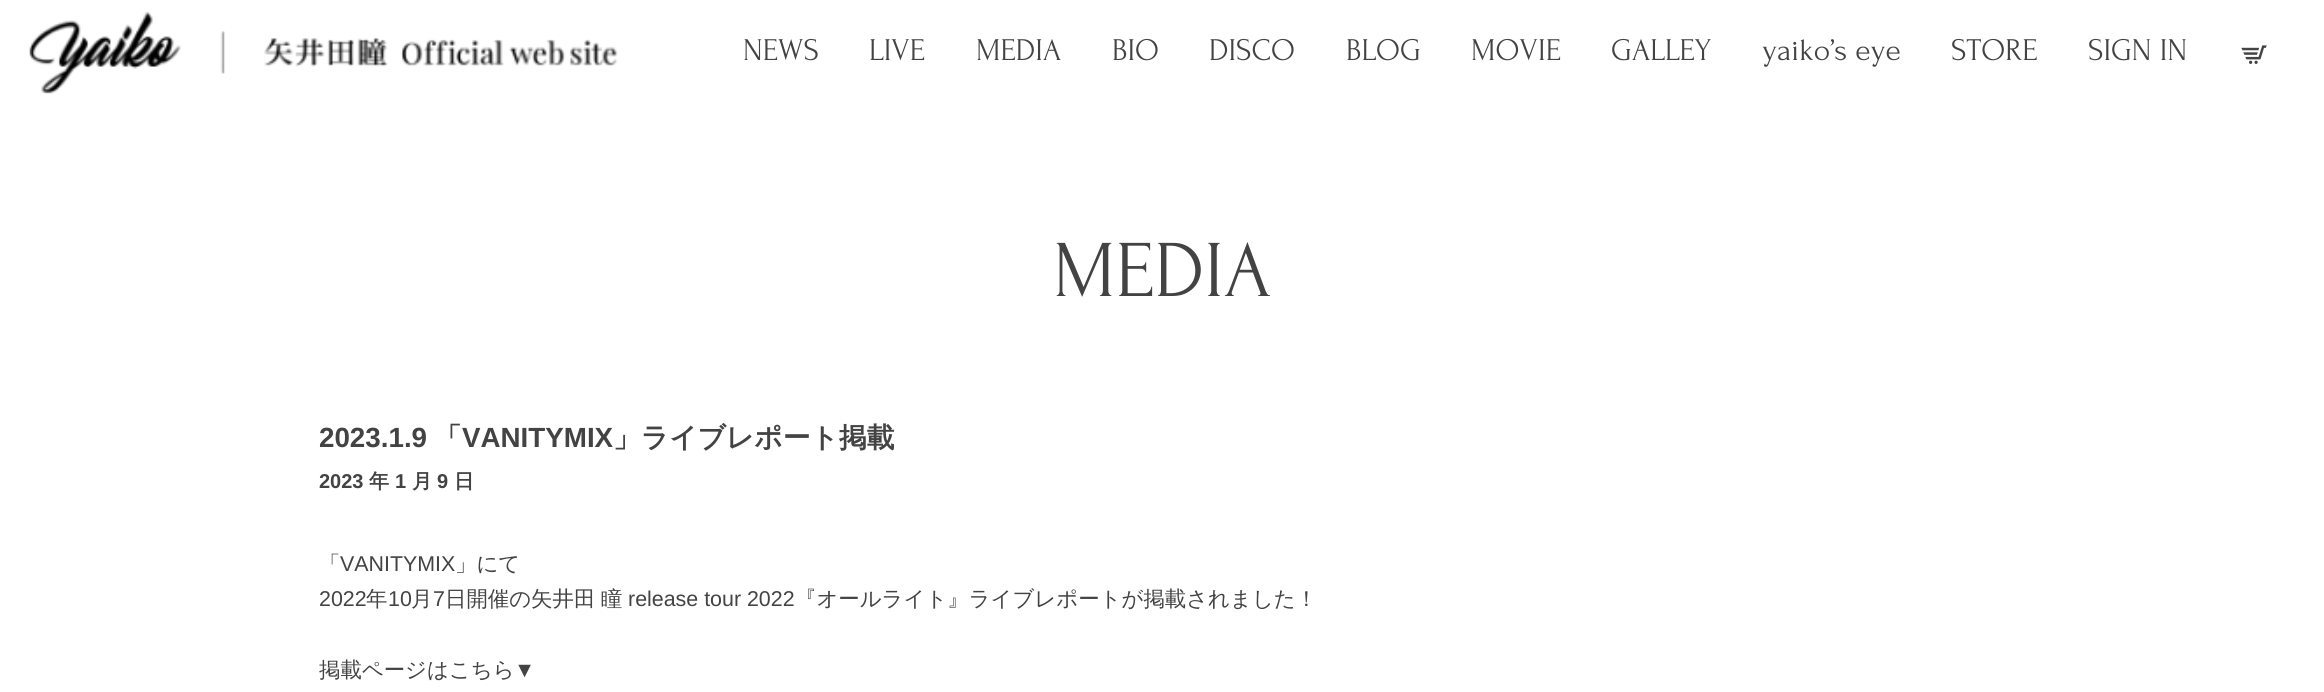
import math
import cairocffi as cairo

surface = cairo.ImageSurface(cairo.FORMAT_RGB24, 2324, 692)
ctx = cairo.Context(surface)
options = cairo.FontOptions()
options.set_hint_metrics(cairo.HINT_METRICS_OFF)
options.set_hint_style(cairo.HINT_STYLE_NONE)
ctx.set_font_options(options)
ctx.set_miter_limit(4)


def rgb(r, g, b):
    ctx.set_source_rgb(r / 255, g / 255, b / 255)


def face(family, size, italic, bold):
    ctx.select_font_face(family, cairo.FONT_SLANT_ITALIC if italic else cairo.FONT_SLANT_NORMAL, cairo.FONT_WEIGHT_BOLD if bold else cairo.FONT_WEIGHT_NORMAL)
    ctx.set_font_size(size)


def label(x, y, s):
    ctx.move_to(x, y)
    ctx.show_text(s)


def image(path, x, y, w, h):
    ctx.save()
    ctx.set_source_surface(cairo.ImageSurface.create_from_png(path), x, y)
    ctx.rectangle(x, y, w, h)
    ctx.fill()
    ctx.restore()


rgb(255, 255, 255)
ctx.paint()
image('image0.png', 29, 12, 589, 82)
face('Forum', 31.5, 0, 0)
rgb(67, 67, 67)
label(743, 60, 'NEWS')
label(869, 60, 'LIVE')
label(976, 60, 'MEDIA')
label(1112, 60, 'BIO')
label(1209, 60, 'DISCO')
label(1346, 60, 'BLOG')
label(1471, 60, 'MOVIE')
label(1611, 60, 'GALLEY')
label(1762, 60, 'yaiko’s eye')
label(1951, 60, 'STORE')
label(2088, 60, 'SIGN IN')
image('image1.png', 2241, 45, 26, 19)
face('Forum', 80.5, 0, 0)
label(1053, 296, 'MEDIA')
face('Liberation Sans', 27.75, 0, 1)
label(319, 447, '2023.1.9')
face('WenQuanYi Zen Hei', 27.75, 0, 1)
label(434, 447, '「')
face('Liberation Sans', 27.75, 0, 1)
label(462, 447, 'VANITYMIX')
face('WenQuanYi Zen Hei', 27.75, 0, 1)
label(613, 447, '」ライブレポート掲載')
face('Liberation Sans', 20, 0, 1)
label(319, 488, '2023')
face('WenQuanYi Zen Hei', 20, 0, 1)
label(369, 488, '年')
face('Liberation Sans', 20, 0, 1)
label(395, 488, '1')
face('WenQuanYi Zen Hei', 20, 0, 1)
label(412, 488, '月')
face('Liberation Sans', 20, 0, 1)
label(437, 488, '9')
face('WenQuanYi Zen Hei', 20, 0, 1)
label(454, 488, '日')
face('WenQuanYi Zen Hei Medium', 21.4, 0, 0)
label(319, 571, '「')
face('Liberation Sans', 21.4, 0, 0)
label(340, 571, 'VANITYMIX')
face('WenQuanYi Zen Hei Medium', 21.4, 0, 0)
label(455, 571, '」にて')
face('Liberation Sans', 21.4, 0, 0)
label(319, 606, '2022')
face('WenQuanYi Zen Hei Medium', 21.4, 0, 0)
label(366, 606, '年')
face('Liberation Sans', 21.4, 0, 0)
label(388, 606, '10')
face('WenQuanYi Zen Hei Medium', 21.4, 0, 0)
label(411, 606, '月')
face('Liberation Sans', 21.4, 0, 0)
label(433, 606, '7')
face('WenQuanYi Zen Hei Medium', 21.4, 0, 0)
label(445, 606, '日開催の矢井田')
label(601, 606, '瞳')
face('Liberation Sans', 21.4, 0, 0)
label(628, 606, 'release tour 2022')
face('WenQuanYi Zen Hei Medium', 21.4, 0, 0)
label(795, 606, '『オールライト』ライブレポートが掲載されました！')
label(319, 677, '掲載ページはこちら')
face('Liberation Sans', 21.4, 0, 0)
label(514, 677, '▼')
surface.write_to_png('render.png')
